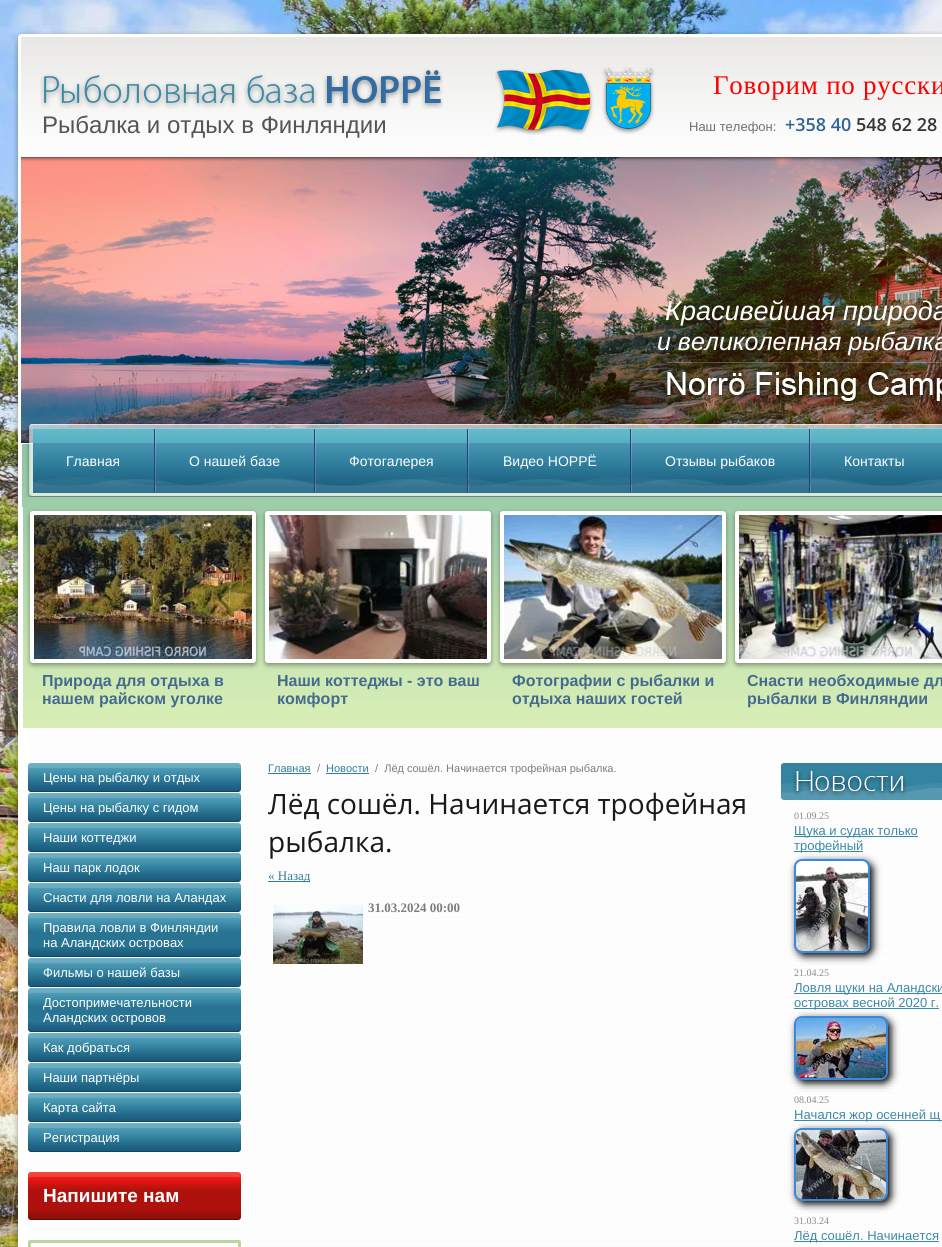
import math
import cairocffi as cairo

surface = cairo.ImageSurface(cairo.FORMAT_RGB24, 942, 1247)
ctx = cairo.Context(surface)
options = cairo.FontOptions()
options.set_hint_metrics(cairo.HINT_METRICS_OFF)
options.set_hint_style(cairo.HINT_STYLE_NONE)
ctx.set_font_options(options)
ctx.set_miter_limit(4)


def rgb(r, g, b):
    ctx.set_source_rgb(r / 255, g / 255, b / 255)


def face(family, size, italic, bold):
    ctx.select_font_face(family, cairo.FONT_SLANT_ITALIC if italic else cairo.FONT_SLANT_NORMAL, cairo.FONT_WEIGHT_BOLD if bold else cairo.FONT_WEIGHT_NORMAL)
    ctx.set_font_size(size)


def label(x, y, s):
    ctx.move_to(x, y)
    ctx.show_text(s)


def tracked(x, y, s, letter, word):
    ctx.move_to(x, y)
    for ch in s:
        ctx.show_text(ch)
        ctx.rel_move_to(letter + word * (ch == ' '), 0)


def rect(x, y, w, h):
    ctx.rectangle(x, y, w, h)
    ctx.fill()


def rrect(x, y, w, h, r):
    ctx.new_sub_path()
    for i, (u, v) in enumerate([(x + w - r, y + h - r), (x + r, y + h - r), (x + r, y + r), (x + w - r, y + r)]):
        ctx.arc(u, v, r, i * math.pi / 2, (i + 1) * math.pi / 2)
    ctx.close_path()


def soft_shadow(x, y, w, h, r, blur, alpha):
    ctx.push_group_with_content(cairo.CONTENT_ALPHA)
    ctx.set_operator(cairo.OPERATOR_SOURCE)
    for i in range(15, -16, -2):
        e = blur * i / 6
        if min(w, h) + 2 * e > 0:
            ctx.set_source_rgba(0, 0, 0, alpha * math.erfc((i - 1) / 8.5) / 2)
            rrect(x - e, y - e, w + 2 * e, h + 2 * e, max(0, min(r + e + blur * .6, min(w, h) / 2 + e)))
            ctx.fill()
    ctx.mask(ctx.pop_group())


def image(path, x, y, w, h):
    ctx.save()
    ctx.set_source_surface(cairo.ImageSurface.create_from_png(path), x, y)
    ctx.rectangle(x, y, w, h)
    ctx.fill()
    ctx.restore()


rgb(255, 255, 255)
ctx.paint()
image('image0.png', 0, 0, 942, 1247)
image('image1.png', 13, 31, 929, 476)
image('image2.png', 13, 507, 929, 740)
image('image3.png', 40, 69, 403, 40)
image('image4.png', 495, 67, 160, 68)
face('Liberation Serif', 27, 0, 0)
rgb(255, 0, 0)
tracked(713, 94, 'Говорим по русски', 0.75, 0)
face('Liberation Sans', 24, 0, 0)
rgb(85, 85, 85)
label(42, 133, 'Рыбалка и отдых в Финляндии')
face('Liberation Sans', 13, 0, 0)
rgb(112, 112, 112)
label(689, 131, 'Наш телефон:')
face('Open Sans SemiBold', 18, 0, 0)
rgb(48, 100, 151)
label(785, 131, '+358 40')
rgb(54, 54, 54)
label(856, 131, '548 62 28')
face('Liberation Sans', 27, 1, 0)
rgb(255, 255, 255)
label(665, 320, 'Красивейшая природа')
face('Liberation Sans', 25, 1, 0)
label(657, 350, 'и великолепная рыбалка')
image('image5.png', 663, 370, 279, 34)
face('Liberation Sans', 14, 0, 0)
label(66, 466, 'Главная')
image('image6.png', 154, 429, 2, 64)
label(189, 466, 'О нашей базе')
image('image6.png', 314, 429, 2, 64)
label(349, 466, 'Фотогалерея')
image('image6.png', 467, 429, 2, 64)
label(503, 466, 'Видео НОРРЁ')
image('image6.png', 630, 429, 2, 64)
label(665, 466, 'Отзывы рыбаков')
image('image6.png', 809, 429, 2, 64)
label(844, 466, 'Контакты')
image('image7.png', 23, 497, 919, 231)
rgb(0, 0, 0)
soft_shadow(30, 513, 226, 152, 3, 2.5, 0.4)
rrect(32, 513, 222, 148, 1)
rgb(255, 255, 255)
ctx.set_line_width(4)
ctx.stroke()
image('image8.png', 34, 515, 218, 144)
face('Liberation Sans', 16, 0, 1)
rgb(68, 107, 142)
label(42, 686, 'Природа для отдыха в')
label(42, 704, 'нашем райском уголке')
rgb(0, 0, 0)
soft_shadow(265, 513, 226, 152, 3, 2.5, 0.4)
rrect(267, 513, 222, 148, 1)
rgb(255, 255, 255)
ctx.stroke()
image('image9.png', 269, 515, 218, 144)
rgb(68, 107, 142)
label(277, 686, 'Наши коттеджы - это ваш')
label(277, 704, 'комфорт')
rgb(0, 0, 0)
soft_shadow(500, 513, 226, 152, 3, 2.5, 0.4)
rrect(502, 513, 222, 148, 1)
rgb(255, 255, 255)
ctx.stroke()
image('image10.png', 504, 515, 218, 144)
rgb(68, 107, 142)
label(512, 686, 'Фотографии с рыбалки и')
label(512, 704, 'отдыха наших гостей')
rgb(0, 0, 0)
soft_shadow(735, 513, 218, 152, 3, 2.5, 0.4)
rrect(737, 513, 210, 148, 1)
rgb(255, 255, 255)
ctx.stroke()
image('image11.png', 739, 515, 203, 144)
rgb(68, 107, 142)
label(747, 686, 'Снасти необходимые дл')
label(747, 704, 'рыбалки в Финляндии')
image('image12.png', 28, 763, 213, 19)
image('image13.png', 28, 782, 213, 10)
face('Liberation Sans', 13, 0, 0)
rgb(255, 255, 255)
label(43, 782, 'Цены на рыбалку и отдых')
image('image12.png', 28, 793, 213, 19)
image('image13.png', 28, 812, 213, 10)
label(43, 812, 'Цены на рыбалку с гидом')
image('image12.png', 28, 823, 213, 19)
image('image13.png', 28, 842, 213, 10)
label(43, 842, 'Наши коттеджи')
image('image12.png', 28, 853, 213, 19)
image('image13.png', 28, 872, 213, 10)
label(43, 872, 'Наш парк лодок')
image('image12.png', 28, 883, 213, 19)
image('image13.png', 28, 902, 213, 10)
label(43, 902, 'Снасти для ловли на Аландах')
image('image12.png', 28, 913, 213, 19)
rgb(41, 115, 147)
rect(28, 932, 213, 15)
rgb(255, 255, 255)
label(43, 932, 'Правила ловли в Финляндии')
image('image14.png', 28, 947, 213, 10)
label(43, 947, 'на Аландских островах')
image('image15.png', 28, 958, 213, 19)
image('image14.png', 28, 977, 213, 10)
label(43, 977, 'Фильмы о нашей базы')
image('image15.png', 28, 988, 213, 19)
rgb(41, 115, 147)
rect(28, 1007, 213, 15)
rgb(255, 255, 255)
label(43, 1007, 'Достопримечательности')
image('image13.png', 28, 1022, 213, 10)
label(43, 1022, 'Аландских островов')
image('image12.png', 28, 1033, 213, 19)
image('image13.png', 28, 1052, 213, 10)
label(43, 1052, 'Как добраться')
image('image12.png', 28, 1063, 213, 19)
image('image13.png', 28, 1082, 213, 10)
label(43, 1082, 'Наши партнёры')
image('image12.png', 28, 1093, 213, 19)
image('image13.png', 28, 1112, 213, 10)
label(43, 1112, 'Карта сайта')
image('image12.png', 28, 1123, 213, 19)
image('image13.png', 28, 1142, 213, 10)
label(43, 1142, 'Регистрация')
image('image16.png', 28, 1172, 213, 18)
rgb(175, 17, 13)
rect(28, 1190, 213, 19)
face('Liberation Sans', 19, 0, 1)
rgb(255, 255, 255)
label(43, 1202, 'Напишите нам')
image('image17.png', 28, 1209, 213, 11)
rrect(29.5, 1241.5, 210, 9, 0.5)
rgb(187, 213, 155)
ctx.set_line_width(3)
ctx.stroke()
face('Liberation Sans', 11, 0, 0)
rgb(48, 126, 156)
label(268, 772, 'Главная')
rect(268, 773, 43, 1)
rgb(125, 125, 125)
label(317, 772, '/')
rgb(48, 126, 156)
label(326, 772, 'Новости')
rect(326, 773, 43, 1)
rgb(125, 125, 125)
label(375, 772, '/  Лёд сошёл. Начинается трофейная рыбалка.')
face('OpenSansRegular', 28, 0, 0)
rgb(25, 25, 25)
label(268, 814, 'Лёд сошёл. Начинается трофейная')
label(268, 852, 'рыбалка.')
rgb(48, 126, 156)
rect(268, 881, 42, 1)
face('Liberation Serif', 13, 0, 0)
label(268, 880, '« Назад')
image('image18.png', 273, 905, 90, 59)
face('Liberation Serif', 13, 0, 1)
rgb(125, 125, 125)
label(368, 912, '31.03.2024 00:00')
image('image19.png', 781, 763, 161, 37)
face('Liberation Serif', 10, 0, 0)
rgb(137, 137, 137)
label(794, 819, '01.09.25')
rgb(59, 138, 167)
rect(794, 836, 124, 1)
face('Liberation Sans', 13, 0, 0)
label(794, 835, 'Щука и судак только')
rect(794, 851, 69, 1)
label(794, 850, 'трофейный')
rgb(0, 0, 0)
soft_shadow(797, 862, 76, 94, 8, 4, 1)
rrect(795, 860, 74, 92, 7)
rgb(58, 137, 220)
ctx.set_line_width(2)
ctx.stroke()
image('image20.png', 796, 861, 72, 90)
face('Liberation Serif', 10, 0, 0)
rgb(137, 137, 137)
label(794, 976, '21.04.25')
rgb(59, 138, 167)
rect(794, 993, 148, 1)
face('Liberation Sans', 13, 0, 0)
label(794, 992, 'Ловля щуки на Аландски')
rect(794, 1008, 145, 1)
label(794, 1007, 'островах весной 2020 г.')
rgb(0, 0, 0)
soft_shadow(797, 1019, 94, 64, 8, 4, 1)
rrect(795, 1017, 92, 62, 7)
rgb(58, 137, 220)
ctx.stroke()
image('image21.png', 796, 1018, 90, 60)
face('Liberation Serif', 10, 0, 0)
rgb(137, 137, 137)
label(794, 1103, '08.04.25')
rgb(59, 138, 167)
rect(794, 1120, 148, 1)
face('Liberation Sans', 13, 0, 0)
label(794, 1119, 'Начался жор осенней щ')
rgb(0, 0, 0)
soft_shadow(797, 1131, 94, 73, 8, 4, 1)
rrect(795, 1129, 92, 71, 7)
rgb(58, 137, 220)
ctx.stroke()
image('image22.png', 796, 1130, 90, 69)
face('Liberation Serif', 10, 0, 0)
rgb(137, 137, 137)
label(794, 1224, '31.03.24')
rgb(59, 138, 167)
rect(794, 1241, 145, 1)
face('Liberation Sans', 13, 0, 0)
label(794, 1240, 'Лёд сошёл. Начинается')
surface.write_to_png('render.png')
